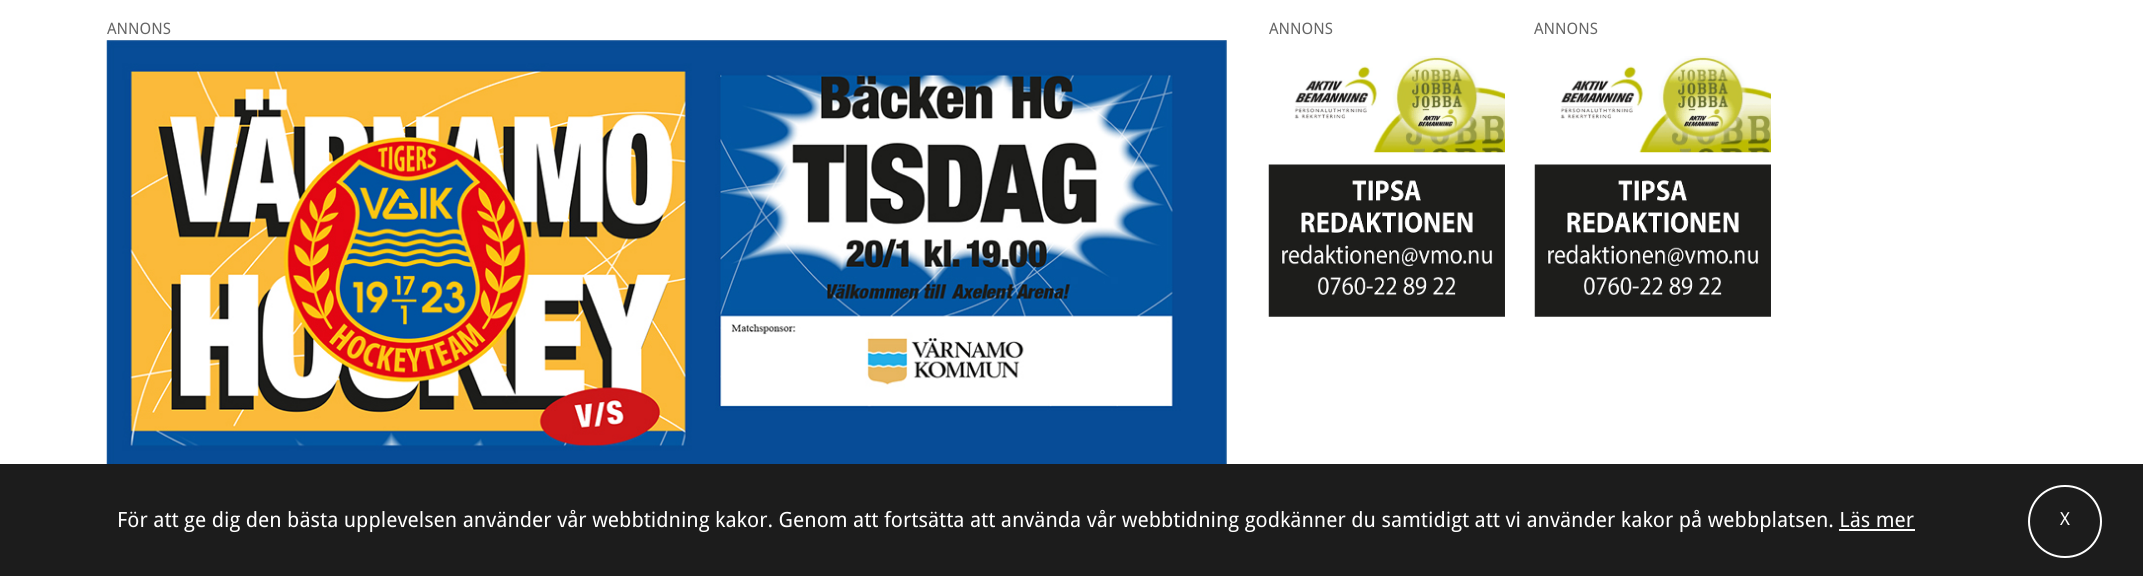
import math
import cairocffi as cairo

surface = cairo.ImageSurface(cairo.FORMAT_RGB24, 2143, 576)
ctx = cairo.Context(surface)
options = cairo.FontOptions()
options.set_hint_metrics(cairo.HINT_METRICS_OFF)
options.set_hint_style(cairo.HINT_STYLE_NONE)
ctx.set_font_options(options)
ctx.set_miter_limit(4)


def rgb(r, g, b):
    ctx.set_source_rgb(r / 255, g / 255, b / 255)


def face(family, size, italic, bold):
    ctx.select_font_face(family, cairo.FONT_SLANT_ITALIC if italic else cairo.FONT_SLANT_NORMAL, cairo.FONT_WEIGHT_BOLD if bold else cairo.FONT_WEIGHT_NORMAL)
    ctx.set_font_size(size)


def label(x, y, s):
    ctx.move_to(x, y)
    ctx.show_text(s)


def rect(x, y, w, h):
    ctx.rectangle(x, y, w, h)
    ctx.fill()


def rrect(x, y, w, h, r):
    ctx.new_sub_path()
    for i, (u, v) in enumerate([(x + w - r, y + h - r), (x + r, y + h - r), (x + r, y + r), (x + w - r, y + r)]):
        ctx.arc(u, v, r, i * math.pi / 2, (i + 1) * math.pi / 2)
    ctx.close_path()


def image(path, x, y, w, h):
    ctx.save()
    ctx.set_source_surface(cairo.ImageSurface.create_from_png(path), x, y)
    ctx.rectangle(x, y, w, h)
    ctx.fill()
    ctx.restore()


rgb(255, 255, 255)
ctx.paint()
rgb(211, 211, 211)
rect(107, 40, 1120, 424)
face('Droid Sans', 15.75, 0, 0)
rgb(102, 102, 102)
label(107, 34, 'ANNONS')
image('image0.png', 106, 40, 1121, 424)
label(1269, 34, 'ANNONS')
image('image1.png', 1294, 56, 211, 97)
image('image2.png', 1268, 164, 237, 153)
label(1534, 34, 'ANNONS')
image('image1.png', 1560, 56, 211, 97)
image('image2.png', 1534, 164, 237, 153)
rgb(28, 28, 28)
rect(0, 464, 2143, 112)
face('Droid Sans', 21, 0, 0)
rgb(255, 255, 255)
label(117, 527, 'För att ge dig den bästa upplevelsen använder vår webbtidning kakor. Genom att fortsätta att använda vår webbtidning godkänner du samtidigt att vi använder kakor på webbplatsen. Läs mer')
rrect(2029, 486, 72, 71, 35.5)
ctx.stroke()
face('Droid Sans', 18, 0, 0)
label(2060, 525, 'X')
rect(1839, 529, 76, 2)
surface.write_to_png('render.png')
